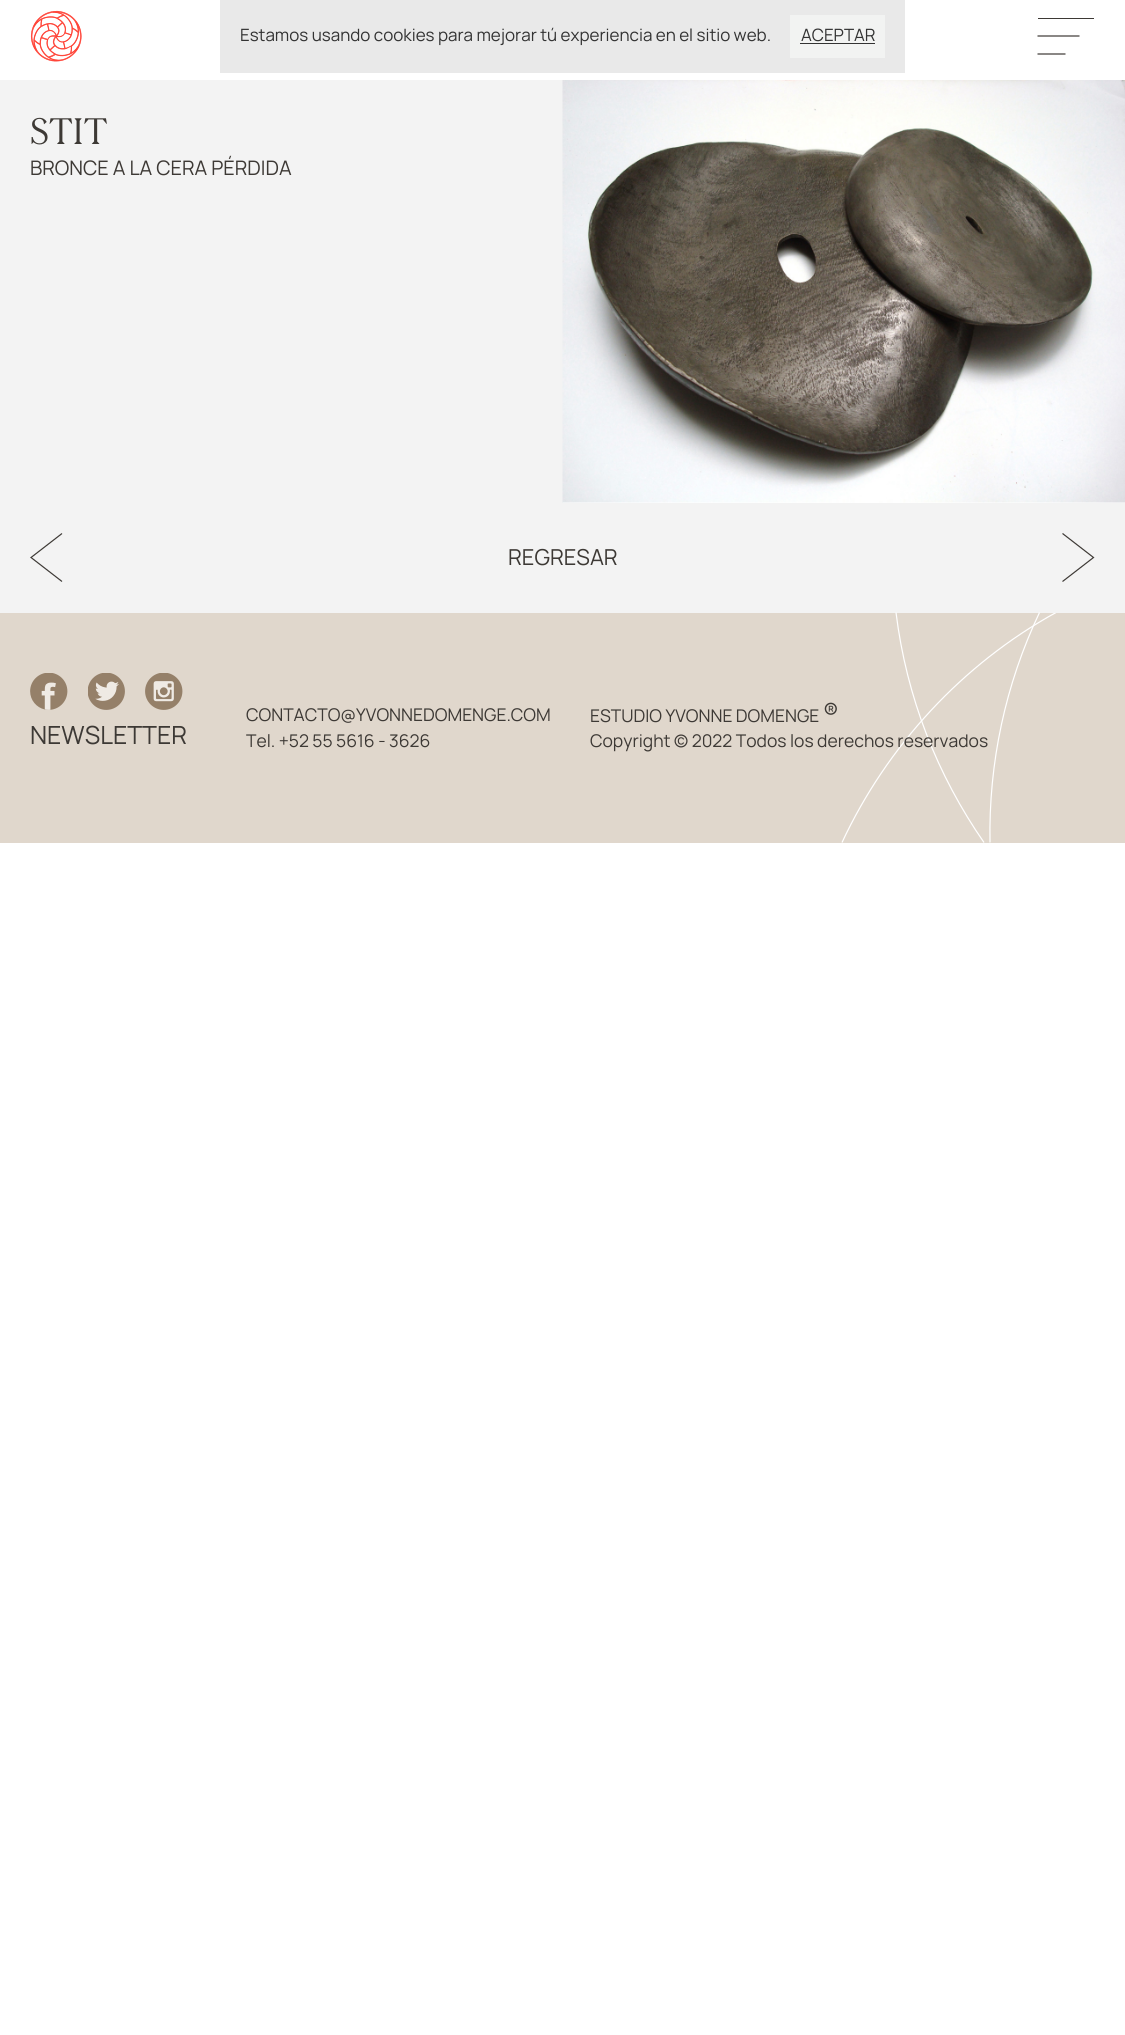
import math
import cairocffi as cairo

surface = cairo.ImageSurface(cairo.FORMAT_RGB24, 1125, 2035)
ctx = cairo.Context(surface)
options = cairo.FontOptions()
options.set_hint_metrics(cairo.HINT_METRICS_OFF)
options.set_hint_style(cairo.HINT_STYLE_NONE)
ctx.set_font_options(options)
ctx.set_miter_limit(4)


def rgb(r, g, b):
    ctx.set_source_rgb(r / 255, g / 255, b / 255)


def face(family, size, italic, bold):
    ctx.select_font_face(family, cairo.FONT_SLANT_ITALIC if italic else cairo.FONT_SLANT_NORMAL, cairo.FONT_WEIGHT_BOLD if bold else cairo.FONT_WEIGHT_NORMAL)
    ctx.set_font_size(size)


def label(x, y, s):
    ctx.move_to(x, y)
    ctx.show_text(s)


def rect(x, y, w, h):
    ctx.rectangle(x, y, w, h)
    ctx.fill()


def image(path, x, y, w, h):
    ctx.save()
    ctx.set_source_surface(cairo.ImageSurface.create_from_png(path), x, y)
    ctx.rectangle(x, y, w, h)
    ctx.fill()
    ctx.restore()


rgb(255, 255, 255)
ctx.paint()
rgb(233, 233, 233)
rect(220, 0, 685, 73)
face('Manrope', 17, 0, 0)
rgb(51, 51, 51)
label(240, 41, 'Estamos usando cookies para mejorar tú experiencia en el sitio web.')
rgb(242, 243, 242)
rect(790, 15, 95, 43)
rgb(51, 51, 51)
label(801, 41, 'ACEPTAR')
rect(800, 43, 75, 1)
image('image0.png', 30, 10, 52, 52)
rgb(61, 57, 53)
rect(1038, 18, 56, 1)
ctx.new_path()
ctx.move_to(1037.5, 36)
ctx.line_to(1079.5, 36)
ctx.move_to(1037.5, 54)
ctx.line_to(1065.5, 54)
ctx.set_line_width(1.2)
ctx.stroke()
rgb(243, 243, 243)
rect(0, 80, 563, 423)
face('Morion', 35, 0, 0)
rgb(61, 57, 53)
label(30, 144, 'STIT')
face('Manrope', 20, 0, 0)
label(30, 175, 'BRONCE A LA CERA PÉRDIDA')
image('image1.png', 562, 80, 563, 423)
rgb(243, 243, 243)
rect(0, 503, 1125, 110)
ctx.new_path()
ctx.move_to(62, 581.5)
ctx.line_to(31, 557.5)
ctx.line_to(62, 533.5)
rgb(61, 57, 53)
ctx.stroke()
face('Manrope', 22, 0, 0)
label(508, 565, 'REGRESAR')
ctx.new_path()
ctx.move_to(1062.5, 581.5)
ctx.line_to(1093.5, 557.5)
ctx.line_to(1062.5, 533.5)
ctx.stroke()
rgb(224, 215, 204)
rect(0, 613, 1125, 230)
ctx.new_path()
ctx.move_to(896, 612.5)
ctx.curve_to(906.5, 697.5, 937.5, 775.5, 984, 842.5)
rgb(255, 255, 255)
ctx.stroke()
ctx.save()
ctx.rectangle(0, 613, 1125, 230)
ctx.clip()
ctx.new_path()
ctx.move_to(1056, 612.5)
ctx.curve_to(962.5, 664, 887, 746, 842, 842.5)
ctx.stroke()
ctx.restore()
ctx.new_path()
ctx.move_to(1039.5, 612.5)
ctx.curve_to(1005.5, 684, 988.5, 763, 990, 842.5)
ctx.stroke()
image('image2.png', 30, 673, 38, 37)
image('image3.png', 88, 673, 37, 37)
image('image4.png', 145, 673, 38, 37)
face('Manrope', 25, 0, 0)
rgb(61, 57, 53)
label(30, 744, 'NEWSLETTER')
face('Manrope', 17.5, 0, 0)
label(246, 721, 'CONTACTO@YVONNEDOMENGE.COM')
label(246, 747, 'Tel. +52 55 5616 - 3626')
label(590, 722, 'ESTUDIO YVONNE DOMENGE')
face('Manrope', 25, 0, 0)
label(823, 722, '®')
face('Manrope', 17.5, 0, 0)
label(590, 747, 'Copyright © 2022 Todos los derechos reservados')
surface.write_to_png('render.png')
